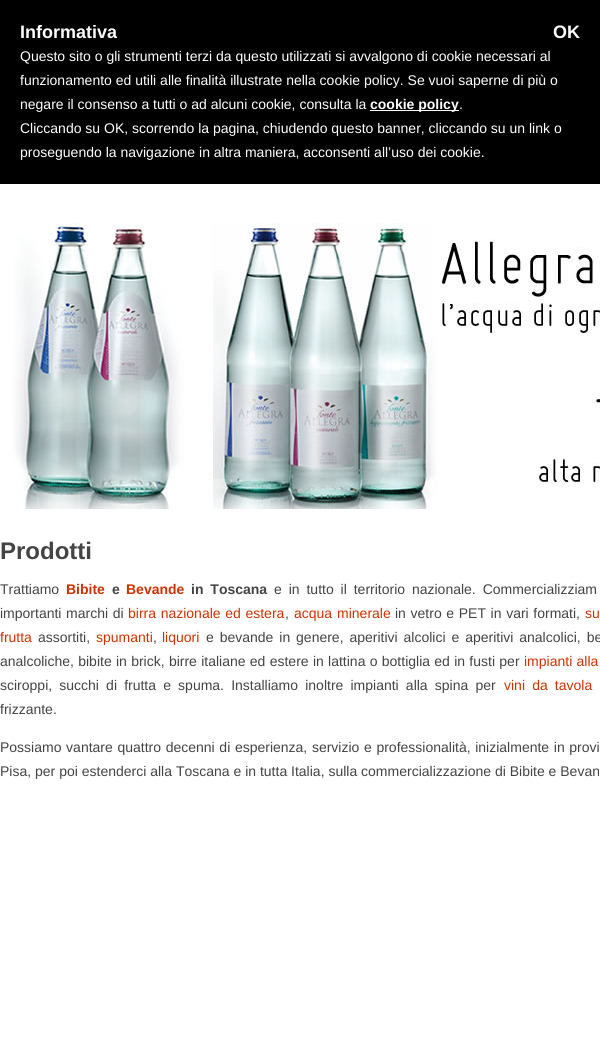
import math
import cairocffi as cairo

surface = cairo.ImageSurface(cairo.FORMAT_RGB24, 600, 1051)
ctx = cairo.Context(surface)
options = cairo.FontOptions()
options.set_hint_metrics(cairo.HINT_METRICS_OFF)
options.set_hint_style(cairo.HINT_STYLE_NONE)
ctx.set_font_options(options)
ctx.set_miter_limit(4)


def rgb(r, g, b):
    ctx.set_source_rgb(r / 255, g / 255, b / 255)


def face(family, size, italic, bold):
    ctx.select_font_face(family, cairo.FONT_SLANT_ITALIC if italic else cairo.FONT_SLANT_NORMAL, cairo.FONT_WEIGHT_BOLD if bold else cairo.FONT_WEIGHT_NORMAL)
    ctx.set_font_size(size)


def label(x, y, s):
    ctx.move_to(x, y)
    ctx.show_text(s)


def tracked(x, y, s, letter, word):
    ctx.move_to(x, y)
    for ch in s:
        ctx.show_text(ch)
        ctx.rel_move_to(letter + word * (ch == ' '), 0)


def rect(x, y, w, h):
    ctx.rectangle(x, y, w, h)
    ctx.fill()


def image(path, x, y, w, h):
    ctx.save()
    ctx.set_source_surface(cairo.ImageSurface.create_from_png(path), x, y)
    ctx.rectangle(x, y, w, h)
    ctx.fill()
    ctx.restore()


rgb(255, 255, 255)
ctx.paint()
rgb(0, 0, 0)
rect(0, 0, 600, 184)
face('Liberation Sans', 18, 0, 1)
rgb(255, 255, 255)
label(20, 38, 'Informativa')
face('Liberation Sans', 14, 0, 0)
label(20, 61, 'Questo sito o gli strumenti terzi da questo utilizzati si avvalgono di cookie necessari al')
label(20, 85, 'funzionamento ed utili alle finalità illustrate nella cookie policy. Se vuoi saperne di più o')
label(20, 109, 'negare il consenso a tutti o ad alcuni cookie, consulta la')
rect(370, 110, 89, 1)
face('Liberation Sans', 14, 0, 1)
label(370, 109, 'cookie policy')
face('Liberation Sans', 14, 0, 0)
label(459, 109, '.')
label(20, 133, 'Cliccando su OK, scorrendo la pagina, chiudendo questo banner, cliccando su un link o')
label(20, 157, 'proseguendo la navigazione in altra maniera, acconsenti all’uso dei cookie.')
face('Liberation Sans', 18, 0, 1)
label(553, 38, 'OK')
image('image0.png', 13, 223, 587, 286)
face('Liberation Sans', 24, 0, 1)
rgb(68, 68, 68)
label(0, 559, 'Prodotti')
face('Liberation Sans', 14, 0, 0)
label(0, 594, 'Trattiamo')
face('Liberation Sans', 14, 0, 1)
rgb(204, 51, 0)
label(66, 594, 'Bibite')
rgb(68, 68, 68)
label(112, 594, 'e')
rgb(204, 51, 0)
label(126, 594, 'Bevande')
rgb(68, 68, 68)
tracked(191, 594, 'in Toscana', 0, 3)
face('Liberation Sans', 14, 0, 0)
tracked(274, 594, 'e in tutto il territorio nazionale. Commercializziam', 0, 3)
tracked(0, 618, 'importanti marchi di', 0, 0.75)
rgb(204, 51, 0)
tracked(128, 618, 'birra nazionale ed estera', 0, 0.75)
rgb(68, 68, 68)
label(285, 618, ',')
rgb(204, 51, 0)
tracked(294, 618, 'acqua minerale', 0, 1)
rgb(68, 68, 68)
tracked(395, 618, 'in vetro e PET in vari formati,', 0, 0.75)
rgb(204, 51, 0)
tracked(585, 618, 'su', 0, 1)
label(0, 642, 'frutta')
rgb(68, 68, 68)
label(38, 642, 'assortiti,')
rgb(204, 51, 0)
label(96, 642, 'spumanti')
rgb(68, 68, 68)
label(153, 642, ',')
rgb(204, 51, 0)
label(162, 642, 'liquori')
rgb(68, 68, 68)
tracked(206, 642, 'e bevande in genere, aperitivi alcolici e aperitivi analcolici, be', 0, 2)
tracked(0, 666, 'analcoliche, bibite in brick, birre italiane ed estere in lattina o bottiglia ed in fusti per', 0, 0.4)
rgb(204, 51, 0)
tracked(524, 666, 'impianti alla', 0, 0.4)
rgb(68, 68, 68)
tracked(0, 690, 'sciroppi, succhi di frutta e spuma. Installiamo inoltre impianti alla spina per', 0, 3.25)
rgb(204, 51, 0)
tracked(504, 690, 'vini da tavola', 0, 3.25)
rgb(68, 68, 68)
label(0, 714, 'frizzante.')
tracked(0, 752, 'Possiamo vantare quattro decenni di esperienza, servizio e professionalità, inizialmente in provi', 0, 0.75)
label(0, 776, 'Pisa, per poi estenderci alla Toscana e in tutta Italia, sulla commercializzazione di Bibite e Bevan')
surface.write_to_png('render.png')
